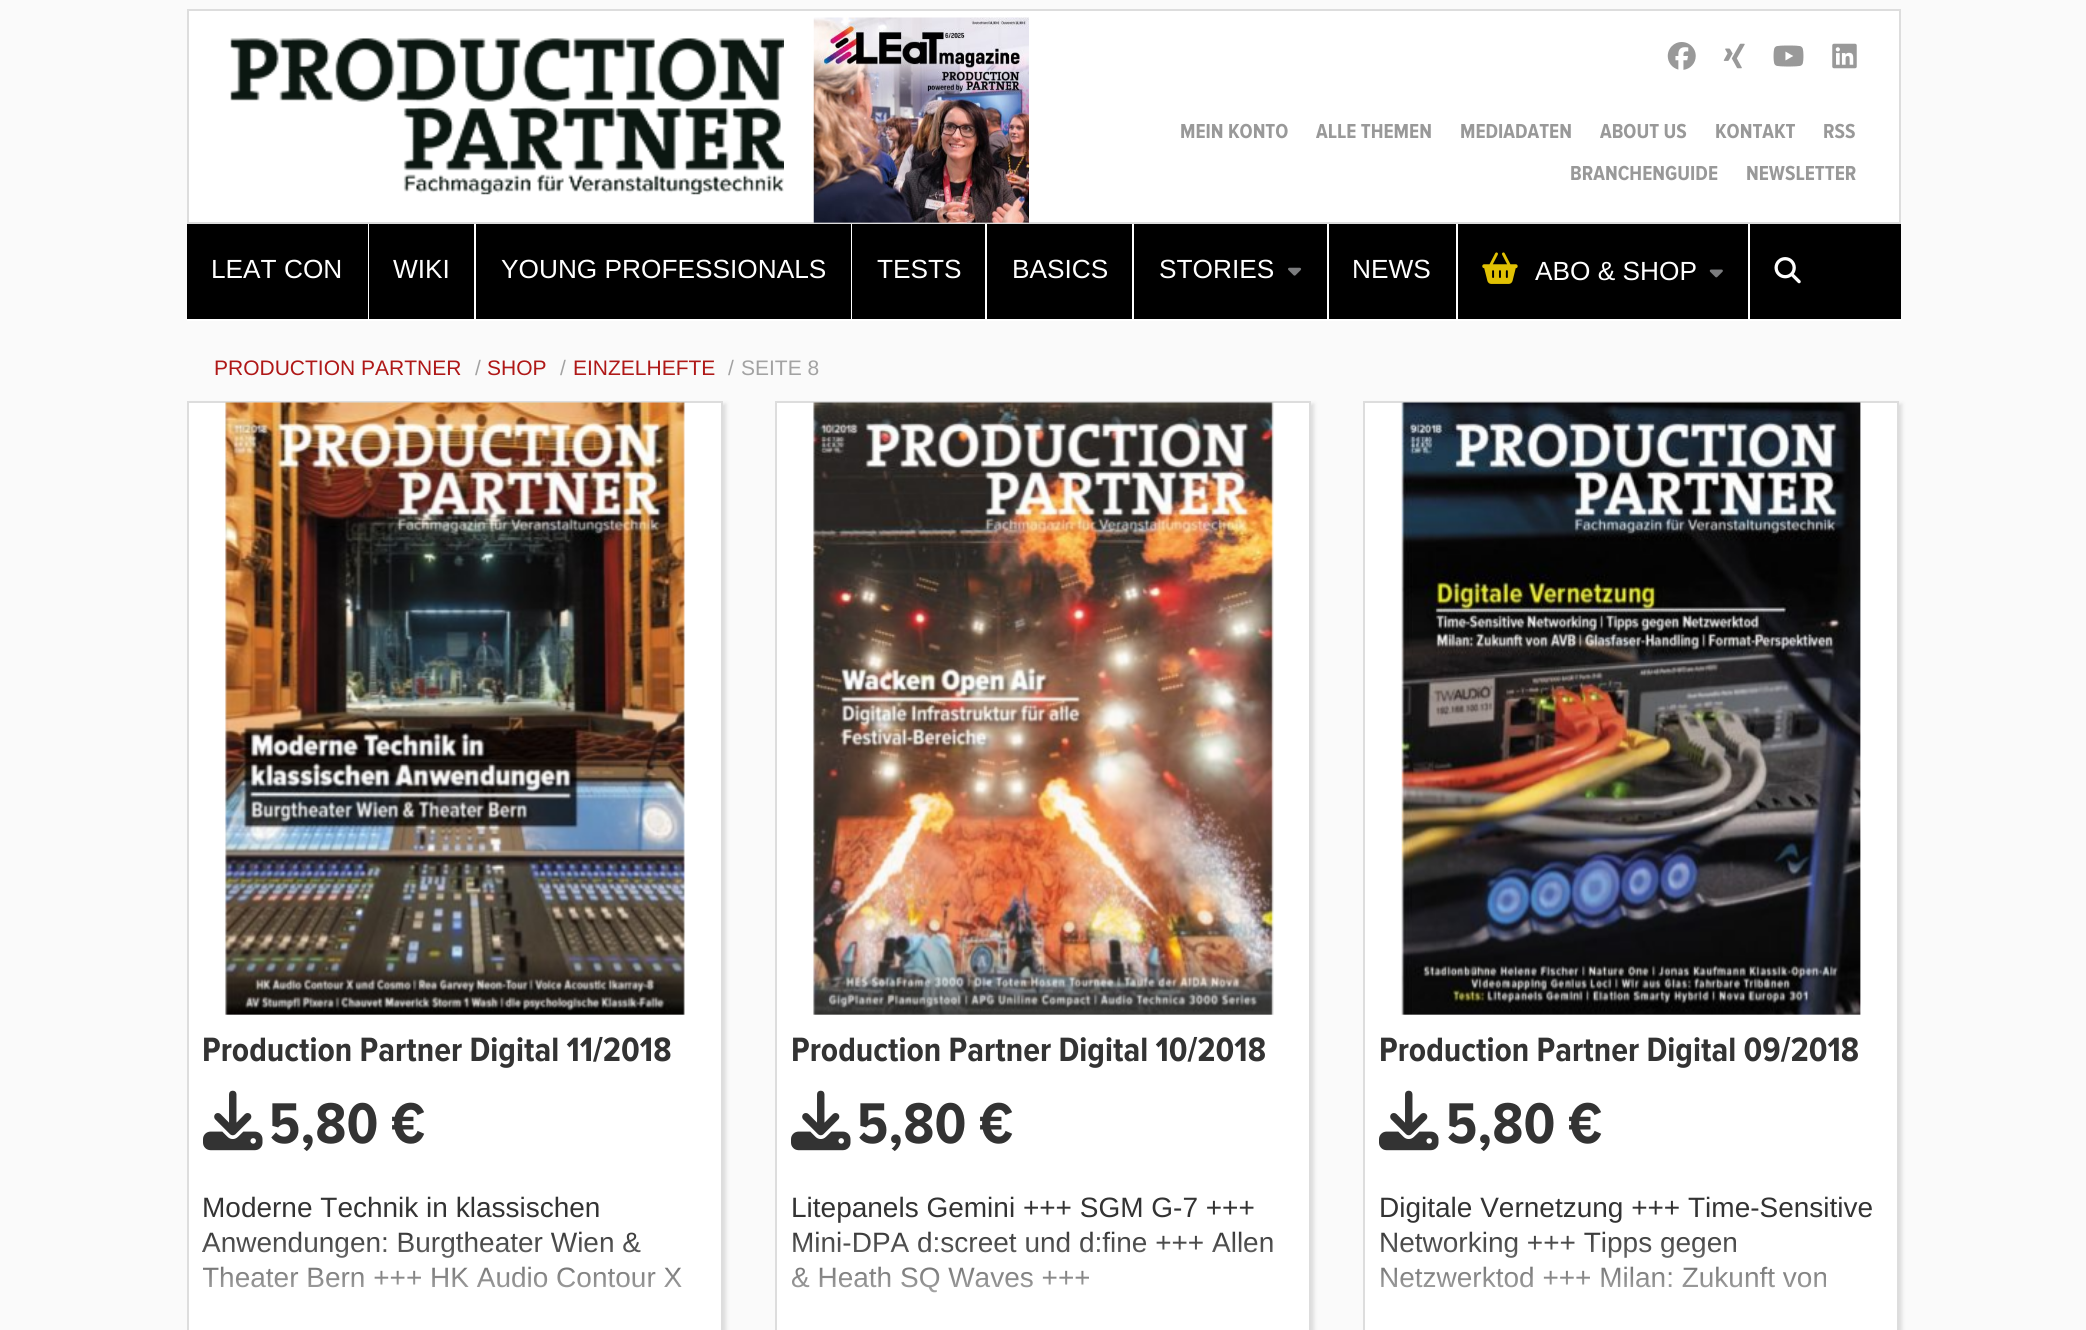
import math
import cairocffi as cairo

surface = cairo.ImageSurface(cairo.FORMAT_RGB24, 2086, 1330)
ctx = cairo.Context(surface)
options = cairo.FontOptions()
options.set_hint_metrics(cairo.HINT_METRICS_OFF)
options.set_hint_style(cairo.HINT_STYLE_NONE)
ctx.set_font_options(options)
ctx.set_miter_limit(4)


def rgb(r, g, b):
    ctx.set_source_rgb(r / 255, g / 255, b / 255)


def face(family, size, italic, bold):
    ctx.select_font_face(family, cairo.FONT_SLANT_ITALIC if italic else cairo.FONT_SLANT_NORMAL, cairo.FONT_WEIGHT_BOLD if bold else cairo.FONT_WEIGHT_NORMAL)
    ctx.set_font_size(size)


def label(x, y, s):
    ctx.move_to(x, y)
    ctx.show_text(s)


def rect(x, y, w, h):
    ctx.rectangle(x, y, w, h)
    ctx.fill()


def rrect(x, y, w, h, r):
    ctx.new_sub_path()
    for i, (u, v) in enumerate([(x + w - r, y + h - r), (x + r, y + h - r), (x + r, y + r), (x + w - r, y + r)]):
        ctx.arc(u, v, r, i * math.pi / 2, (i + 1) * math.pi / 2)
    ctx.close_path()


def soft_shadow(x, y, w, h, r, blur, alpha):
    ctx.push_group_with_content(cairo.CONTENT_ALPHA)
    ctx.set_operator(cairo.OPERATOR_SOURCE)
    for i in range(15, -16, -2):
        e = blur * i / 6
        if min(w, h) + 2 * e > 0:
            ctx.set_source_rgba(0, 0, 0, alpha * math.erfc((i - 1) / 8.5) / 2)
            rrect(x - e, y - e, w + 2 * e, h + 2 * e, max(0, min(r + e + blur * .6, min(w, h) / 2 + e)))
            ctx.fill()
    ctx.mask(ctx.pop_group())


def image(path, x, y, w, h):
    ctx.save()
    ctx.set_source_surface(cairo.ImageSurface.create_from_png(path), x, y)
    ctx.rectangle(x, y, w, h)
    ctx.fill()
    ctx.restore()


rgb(250, 250, 250)
ctx.paint()
rgb(255, 255, 255)
ctx.rectangle(188, 10, 1712, 213)
ctx.fill_preserve()
rgb(221, 221, 221)
ctx.stroke()
image('image0.png', 230, 38, 554, 157)
image('image1.png', 813, 17, 216, 206)
image('image2.png', 1667, 42, 29, 28)
image('image3.png', 1723, 43, 22, 26)
image('image4.png', 1773, 45, 31, 22)
image('image5.png', 1832, 43, 25, 26)
face('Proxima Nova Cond', 21, 0, 1)
rgb(153, 153, 153)
label(1180, 138, 'MEIN KONTO')
label(1316, 138, 'ALLE THEMEN')
label(1460, 138, 'MEDIADATEN')
label(1600, 138, 'ABOUT US')
label(1715, 138, 'KONTAKT')
label(1823, 138, 'RSS')
label(1570, 180, 'BRANCHENGUIDE')
label(1746, 180, 'NEWSLETTER')
rgb(0, 0, 0)
rect(187, 224, 1714, 95)
rgb(255, 255, 255)
rect(187, 319, 1714, 2)
rect(368, 224, 1, 95)
face('Liberation Sans', 26.25, 0, 0)
label(211, 278, 'LEAT CON')
rect(474, 224, 2, 95)
label(393, 278, 'WIKI')
rect(851, 224, 1, 95)
label(501, 278, 'YOUNG PROFESSIONALS')
rect(985, 224, 2, 95)
label(877, 278, 'TESTS')
rect(1132, 224, 2, 95)
label(1012, 278, 'BASICS')
rect(1327, 224, 2, 95)
label(1159, 278, 'STORIES')
image('image6.png', 1288, 267, 14, 9)
rect(1456, 224, 2, 95)
label(1352, 278, 'NEWS')
rect(1748, 224, 2, 95)
image('image7.png', 1482, 252, 36, 32)
label(1535, 280, 'ABO & SHOP')
image('image8.png', 1709, 269, 14, 9)
image('image9.png', 1774, 257, 27, 27)
face('Liberation Sans', 21, 0, 0)
rgb(175, 24, 23)
label(214, 375, 'PRODUCTION PARTNER')
rgb(162, 162, 162)
label(475, 375, '/')
rgb(175, 24, 23)
label(487, 375, 'SHOP')
rgb(162, 162, 162)
label(560, 375, '/')
rgb(175, 24, 23)
label(573, 375, 'EINZELHEFTE')
rgb(162, 162, 162)
label(728, 375, '/')
label(741, 375, 'SEITE 8')
rgb(221, 221, 221)
soft_shadow(191, 404, 535, 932, 0, 2, 1)
rgb(255, 255, 255)
ctx.rectangle(188, 402, 534, 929)
ctx.fill_preserve()
rgb(221, 221, 221)
ctx.stroke()
image('image10.png', 225, 402, 460, 613)
face('Proxima Nova Cond', 35, 0, 1)
rgb(51, 51, 51)
label(202, 1061, 'Production Partner Digital 11/2018')
image('image11.png', 203, 1090, 60, 61)
face('Proxima Nova Cond', 59.5, 0, 1)
label(269, 1143, '5,80 €')
face('Liberation Sans', 28, 0, 0)
label(202, 1217, 'Moderne Technik in klassischen')
label(202, 1252, 'Anwendungen: Burgtheater Wien &')
ctx.save()
ctx.rectangle(203, 1029, 504, 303)
ctx.clip()
label(202, 1287, 'Theater Bern +++ HK Audio Contour X')
ctx.restore()
gradient = cairo.LinearGradient(455, 1029, 455, 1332)
gradient.add_color_stop_rgba(0.66, 1, 1, 1, 0)
gradient.add_color_stop_rgba(1, 1, 1, 1, 0.9)
ctx.set_source(gradient)
rect(203, 1232, 479, 56)
rgb(221, 221, 221)
soft_shadow(779, 404, 535, 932, 0, 2, 1)
rgb(255, 255, 255)
ctx.rectangle(776, 402, 534, 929)
ctx.fill_preserve()
rgb(221, 221, 221)
ctx.stroke()
image('image12.png', 813, 402, 461, 613)
face('Proxima Nova Cond', 35, 0, 1)
rgb(51, 51, 51)
label(791, 1061, 'Production Partner Digital 10/2018')
image('image11.png', 791, 1090, 60, 61)
face('Proxima Nova Cond', 59.5, 0, 1)
label(857, 1143, '5,80 €')
face('Liberation Sans', 28, 0, 0)
label(791, 1217, 'Litepanels Gemini +++ SGM G-7 +++')
label(791, 1252, 'Mini-DPA d:screet und d:fine +++ Allen')
label(791, 1287, '& Heath SQ Waves +++')
gradient = cairo.LinearGradient(1043, 1029, 1043, 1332)
gradient.add_color_stop_rgba(0.66, 1, 1, 1, 0)
gradient.add_color_stop_rgba(1, 1, 1, 1, 0.9)
ctx.set_source(gradient)
rect(791, 1232, 482, 61)
rgb(221, 221, 221)
soft_shadow(1367, 404, 535, 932, 0, 2, 1)
rgb(255, 255, 255)
ctx.rectangle(1364, 402, 534, 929)
ctx.fill_preserve()
rgb(221, 221, 221)
ctx.stroke()
image('image13.png', 1401, 402, 460, 613)
face('Proxima Nova Cond', 35, 0, 1)
rgb(51, 51, 51)
label(1379, 1061, 'Production Partner Digital 09/2018')
image('image11.png', 1379, 1090, 60, 61)
face('Proxima Nova Cond', 59.5, 0, 1)
label(1446, 1143, '5,80 €')
face('Liberation Sans', 28, 0, 0)
label(1379, 1217, 'Digitale Vernetzung +++ Time-Sensitive')
label(1379, 1252, 'Networking +++ Tipps gegen')
label(1379, 1287, 'Netzwerktod +++ Milan: Zukunft von')
gradient = cairo.LinearGradient(1631, 1029, 1631, 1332)
gradient.add_color_stop_rgba(0.66, 1, 1, 1, 0)
gradient.add_color_stop_rgba(1, 1, 1, 1, 0.9)
ctx.set_source(gradient)
rect(1381, 1232, 446, 56)
surface.write_to_png('render.png')
